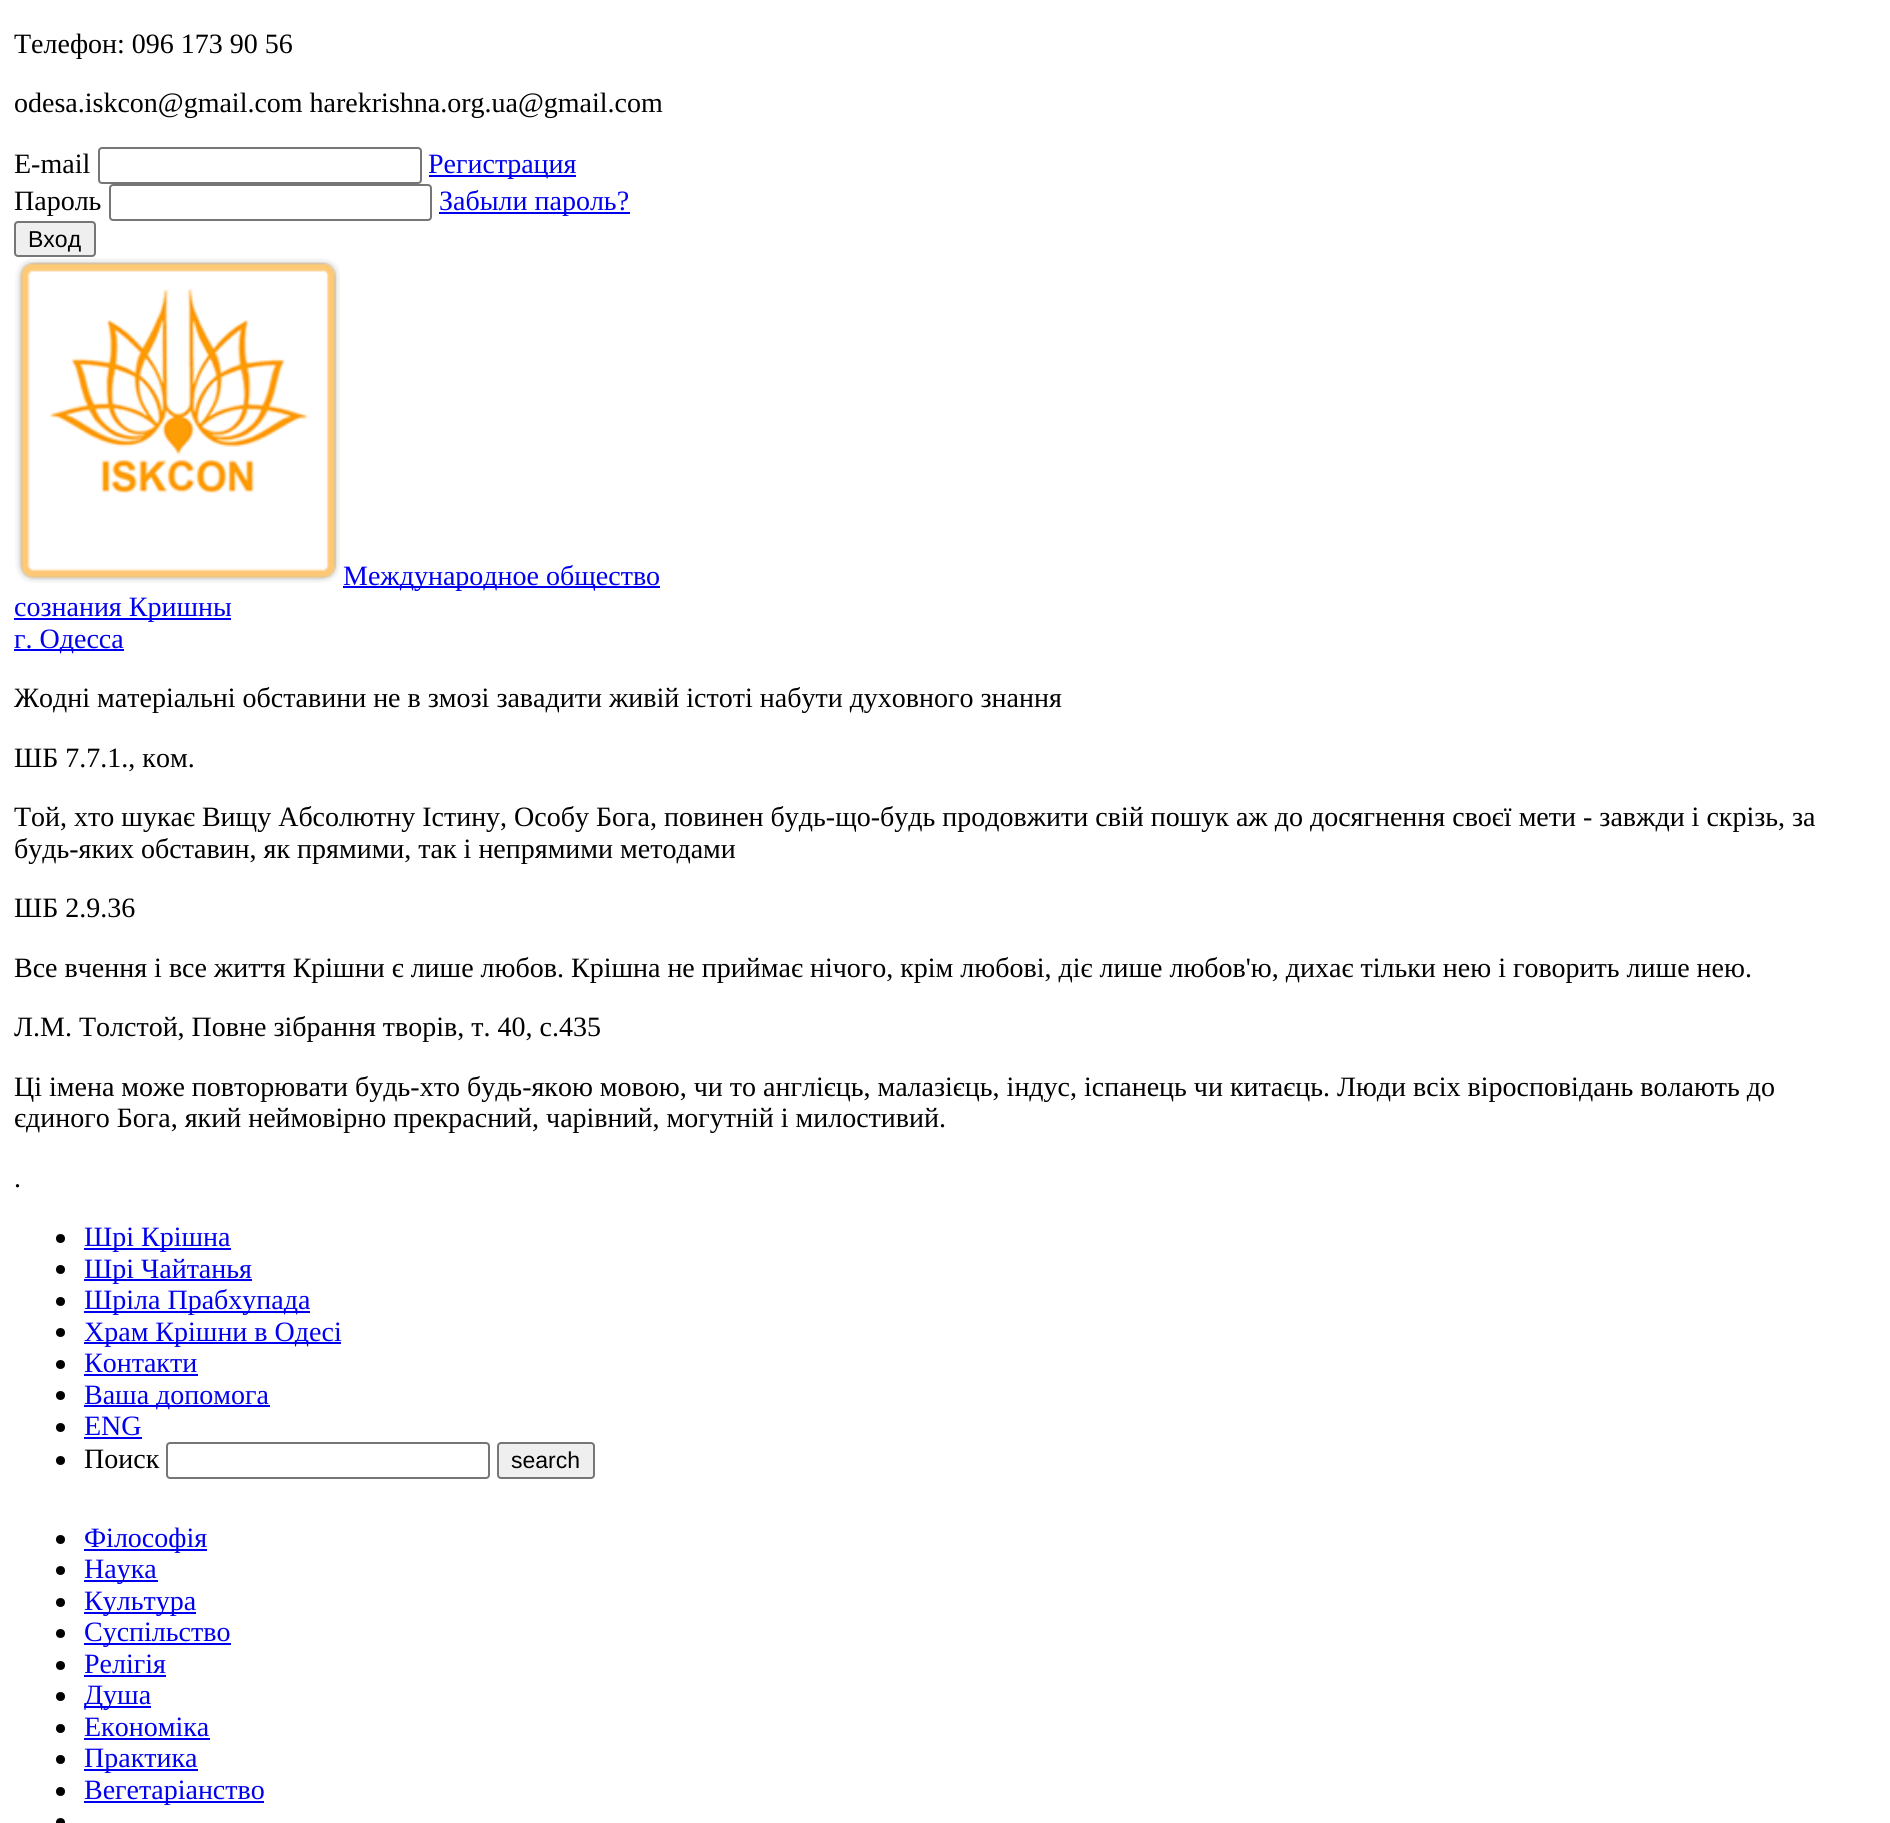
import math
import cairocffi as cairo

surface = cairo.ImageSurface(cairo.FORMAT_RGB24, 1890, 1823)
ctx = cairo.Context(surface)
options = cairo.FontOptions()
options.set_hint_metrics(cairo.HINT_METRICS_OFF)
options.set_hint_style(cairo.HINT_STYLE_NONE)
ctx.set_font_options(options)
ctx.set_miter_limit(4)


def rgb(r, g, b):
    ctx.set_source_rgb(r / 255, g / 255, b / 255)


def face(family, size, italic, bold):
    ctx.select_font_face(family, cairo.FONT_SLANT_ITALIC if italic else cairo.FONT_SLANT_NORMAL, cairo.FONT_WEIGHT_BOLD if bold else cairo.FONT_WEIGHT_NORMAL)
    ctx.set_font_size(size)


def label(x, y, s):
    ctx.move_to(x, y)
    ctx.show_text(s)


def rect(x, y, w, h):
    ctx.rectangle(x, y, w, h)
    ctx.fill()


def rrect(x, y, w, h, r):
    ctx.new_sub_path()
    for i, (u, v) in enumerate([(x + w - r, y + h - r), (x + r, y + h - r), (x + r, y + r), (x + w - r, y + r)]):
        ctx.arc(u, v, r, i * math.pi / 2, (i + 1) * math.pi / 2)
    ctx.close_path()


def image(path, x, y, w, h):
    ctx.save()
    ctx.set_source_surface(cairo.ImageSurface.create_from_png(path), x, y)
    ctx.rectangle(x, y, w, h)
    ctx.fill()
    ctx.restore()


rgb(255, 255, 255)
ctx.paint()
face('Liberation Serif', 28, 0, 0)
rgb(0, 0, 0)
label(14, 53, 'Телефон: 096 173 90 56')
label(14, 112, 'odesa.iskcon@gmail.com harekrishna.org.ua@gmail.com')
label(14, 173, 'E-mail')
rrect(99, 148, 322, 35, 3)
rgb(118, 118, 118)
ctx.stroke()
rgb(0, 0, 238)
rect(429, 175, 147, 2)
label(428, 173, 'Регистрация')
rgb(0, 0, 0)
label(14, 210, 'Пароль')
rrect(110, 185, 321, 35, 3)
rgb(118, 118, 118)
ctx.stroke()
rgb(0, 0, 238)
rect(439, 212, 191, 2)
label(439, 210, 'Забыли пароль?')
rgb(239, 239, 239)
rrect(15, 222, 80, 34, 3)
ctx.fill_preserve()
rgb(118, 118, 118)
ctx.stroke()
face('Liberation Sans', 23, 0, 0)
rgb(0, 0, 0)
label(28, 247, 'Вход')
image('image0.png', 15, 258, 325, 325)
rgb(0, 0, 238)
rect(343, 586, 317, 2)
face('Liberation Serif', 28, 0, 0)
label(343, 585, 'Международное общество')
rect(14, 618, 217, 2)
label(14, 616, 'сознания Кришны')
rect(14, 649, 110, 2)
label(14, 648, 'г. Одесса')
rgb(0, 0, 0)
label(14, 707, 'Жодні матеріальні обставини не в змозі завадити живій істоті набути духовного знання')
label(14, 767, 'ШБ 7.7.1., ком.')
label(14, 826, 'Той, хто шукає Вищу Абсолютну Істину, Особу Бога, повинен будь-що-будь продовжити свій пошук аж до досягнення своєї мети - завжди і скрізь, за')
label(14, 858, 'будь-яких обставин, як прямими, так і непрямими методами')
label(14, 917, 'ШБ 2.9.36')
label(14, 977, 'Все вчення і все життя Крішни є лише любов. Крішна не приймає нічого, крім любові, діє лише любов\'ю, дихає тільки нею і говорить лише нею.')
label(14, 1036, 'Л.М. Толстой, Повне зібрання творів, т. 40, с.435')
label(14, 1096, 'Ці імена може повторювати будь-хто будь-якою мовою, чи то англієць, малазієць, індус, іспанець чи китаєць. Люди всіх віросповідань волають до')
label(14, 1127, 'єдиного Бога, який неймовірно прекрасний, чарівний, могутній і милостивий.')
label(14, 1187, '.')
ctx.new_path()
ctx.arc(60.5, 1238.5, 4.5, 0, 2 * math.pi)
ctx.fill()
rgb(0, 0, 238)
rect(84, 1248, 147, 2)
label(84, 1246, 'Шрі Крішна')
rgb(0, 0, 0)
ctx.new_path()
ctx.arc(60.5, 1269.5, 4.5, 0, 2 * math.pi)
ctx.fill()
rgb(0, 0, 238)
rect(84, 1279, 168, 2)
label(84, 1278, 'Шрі Чайтанья')
rgb(0, 0, 0)
ctx.new_path()
ctx.arc(60.5, 1301.5, 4.5, 0, 2 * math.pi)
ctx.fill()
rgb(0, 0, 238)
rect(84, 1311, 226, 2)
label(84, 1309, 'Шріла Прабхупада')
rgb(0, 0, 0)
ctx.new_path()
ctx.arc(60.5, 1332.5, 4.5, 0, 2 * math.pi)
ctx.fill()
rgb(0, 0, 238)
rect(84, 1342, 257, 2)
label(84, 1341, 'Храм Крішни в Одесі')
rgb(0, 0, 0)
ctx.new_path()
ctx.arc(60.5, 1364.5, 4.5, 0, 2 * math.pi)
ctx.fill()
rgb(0, 0, 238)
label(84, 1372, 'Контакти')
rect(84, 1374, 114, 2)
rgb(0, 0, 0)
ctx.new_path()
ctx.arc(60.5, 1395.5, 4.5, 0, 2 * math.pi)
ctx.fill()
rgb(0, 0, 238)
rect(84, 1405, 186, 2)
label(84, 1404, 'Ваша допомога')
rgb(0, 0, 0)
ctx.new_path()
ctx.arc(60.5, 1427.5, 4.5, 0, 2 * math.pi)
ctx.fill()
rgb(0, 0, 238)
label(84, 1435, 'ENG')
rect(84, 1437, 58, 2)
rgb(0, 0, 0)
ctx.new_path()
ctx.arc(60.5, 1460.5, 4.5, 0, 2 * math.pi)
ctx.fill()
label(84, 1468, 'Поиск')
rrect(167, 1443, 322, 35, 3)
rgb(118, 118, 118)
ctx.stroke()
rgb(239, 239, 239)
rrect(498, 1443, 96, 35, 3)
ctx.fill_preserve()
rgb(118, 118, 118)
ctx.stroke()
face('Liberation Sans', 23, 0, 0)
rgb(0, 0, 0)
label(511, 1468, 'search')
ctx.new_path()
ctx.arc(60.5, 1539.5, 4.5, 0, 2 * math.pi)
ctx.fill()
rgb(0, 0, 238)
rect(84, 1549, 123, 2)
face('Liberation Serif', 28, 0, 0)
label(84, 1547, 'Філософія')
rgb(0, 0, 0)
ctx.new_path()
ctx.arc(60.5, 1570.5, 4.5, 0, 2 * math.pi)
ctx.fill()
rgb(0, 0, 238)
rect(84, 1580, 74, 2)
label(84, 1578, 'Наука')
rgb(0, 0, 0)
ctx.new_path()
ctx.arc(60.5, 1602.5, 4.5, 0, 2 * math.pi)
ctx.fill()
rgb(0, 0, 238)
rect(84, 1612, 112, 2)
label(84, 1610, 'Культура')
rgb(0, 0, 0)
ctx.new_path()
ctx.arc(60.5, 1633.5, 4.5, 0, 2 * math.pi)
ctx.fill()
rgb(0, 0, 238)
rect(84, 1643, 147, 2)
label(84, 1641, 'Суспільство')
rgb(0, 0, 0)
ctx.new_path()
ctx.arc(60.5, 1665.5, 4.5, 0, 2 * math.pi)
ctx.fill()
rgb(0, 0, 238)
label(84, 1673, 'Релігія')
rect(84, 1675, 82, 2)
rgb(0, 0, 0)
ctx.new_path()
ctx.arc(60.5, 1696.5, 4.5, 0, 2 * math.pi)
ctx.fill()
rgb(0, 0, 238)
rect(84, 1706, 67, 2)
label(84, 1704, 'Душа')
rgb(0, 0, 0)
ctx.new_path()
ctx.arc(60.5, 1728.5, 4.5, 0, 2 * math.pi)
ctx.fill()
rgb(0, 0, 238)
label(84, 1736, 'Економіка')
rect(84, 1738, 126, 2)
rgb(0, 0, 0)
ctx.new_path()
ctx.arc(60.5, 1759.5, 4.5, 0, 2 * math.pi)
ctx.fill()
rgb(0, 0, 238)
rect(84, 1769, 114, 2)
label(84, 1767, 'Практика')
rgb(0, 0, 0)
ctx.new_path()
ctx.arc(60.5, 1791.5, 4.5, 0, 2 * math.pi)
ctx.fill()
rgb(0, 0, 238)
rect(84, 1801, 180, 2)
label(84, 1799, 'Вегетаріанство')
rgb(0, 0, 0)
ctx.new_path()
ctx.arc(60.5, 1822.5, 4.5, 0, 2 * math.pi)
ctx.fill()
surface.write_to_png('render.png')
